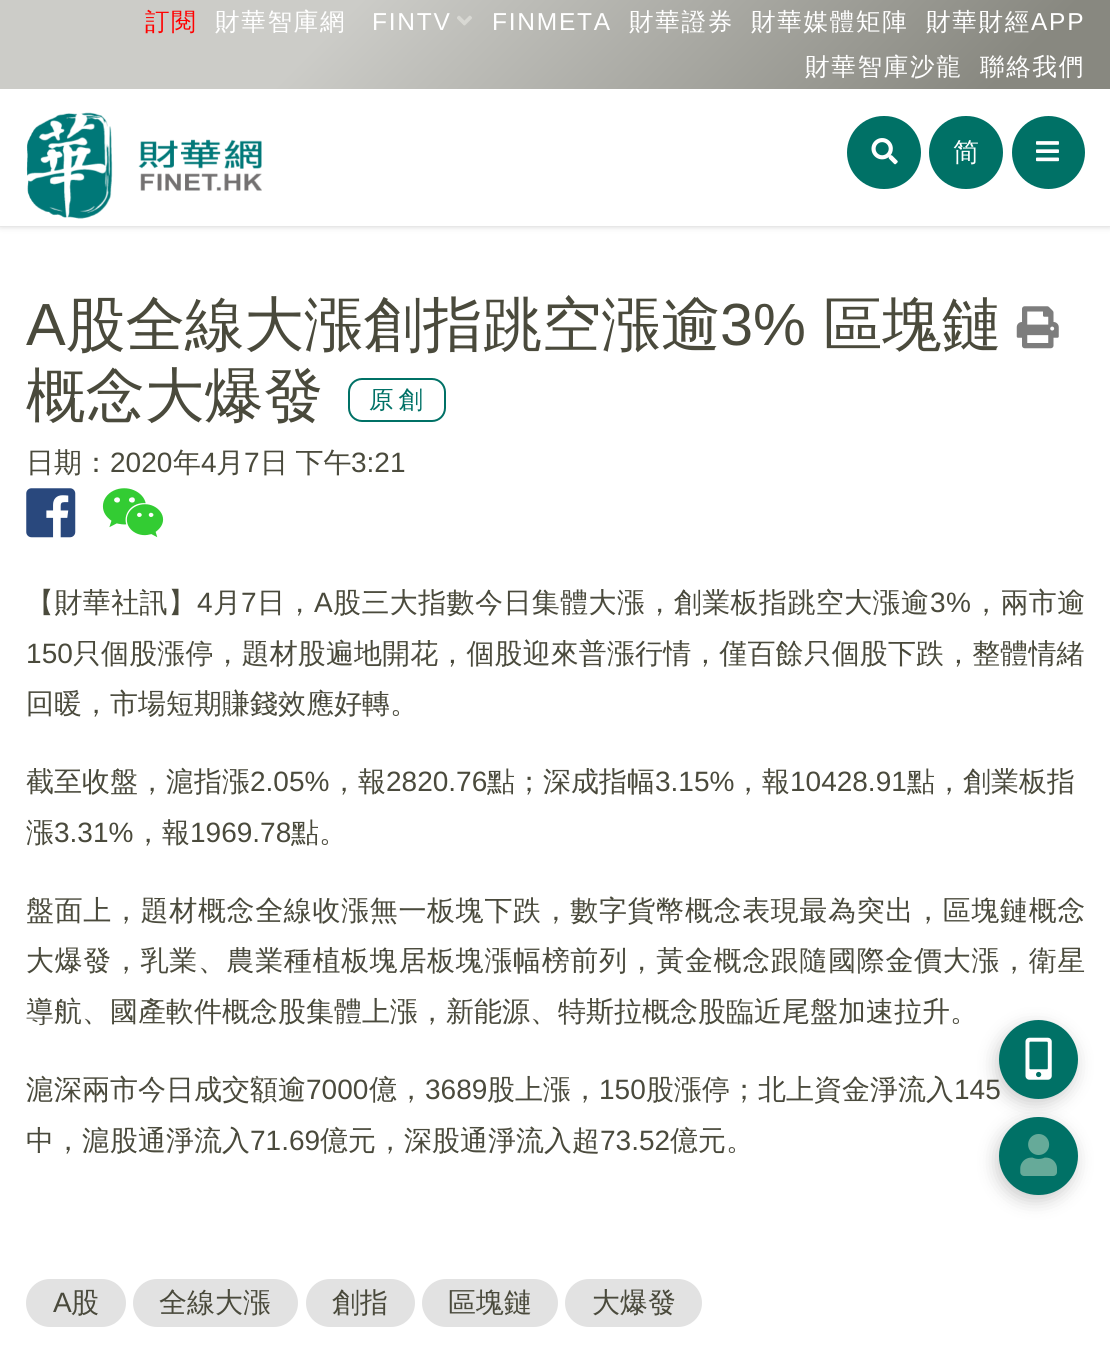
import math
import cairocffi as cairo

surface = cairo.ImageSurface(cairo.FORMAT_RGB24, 1110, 1346)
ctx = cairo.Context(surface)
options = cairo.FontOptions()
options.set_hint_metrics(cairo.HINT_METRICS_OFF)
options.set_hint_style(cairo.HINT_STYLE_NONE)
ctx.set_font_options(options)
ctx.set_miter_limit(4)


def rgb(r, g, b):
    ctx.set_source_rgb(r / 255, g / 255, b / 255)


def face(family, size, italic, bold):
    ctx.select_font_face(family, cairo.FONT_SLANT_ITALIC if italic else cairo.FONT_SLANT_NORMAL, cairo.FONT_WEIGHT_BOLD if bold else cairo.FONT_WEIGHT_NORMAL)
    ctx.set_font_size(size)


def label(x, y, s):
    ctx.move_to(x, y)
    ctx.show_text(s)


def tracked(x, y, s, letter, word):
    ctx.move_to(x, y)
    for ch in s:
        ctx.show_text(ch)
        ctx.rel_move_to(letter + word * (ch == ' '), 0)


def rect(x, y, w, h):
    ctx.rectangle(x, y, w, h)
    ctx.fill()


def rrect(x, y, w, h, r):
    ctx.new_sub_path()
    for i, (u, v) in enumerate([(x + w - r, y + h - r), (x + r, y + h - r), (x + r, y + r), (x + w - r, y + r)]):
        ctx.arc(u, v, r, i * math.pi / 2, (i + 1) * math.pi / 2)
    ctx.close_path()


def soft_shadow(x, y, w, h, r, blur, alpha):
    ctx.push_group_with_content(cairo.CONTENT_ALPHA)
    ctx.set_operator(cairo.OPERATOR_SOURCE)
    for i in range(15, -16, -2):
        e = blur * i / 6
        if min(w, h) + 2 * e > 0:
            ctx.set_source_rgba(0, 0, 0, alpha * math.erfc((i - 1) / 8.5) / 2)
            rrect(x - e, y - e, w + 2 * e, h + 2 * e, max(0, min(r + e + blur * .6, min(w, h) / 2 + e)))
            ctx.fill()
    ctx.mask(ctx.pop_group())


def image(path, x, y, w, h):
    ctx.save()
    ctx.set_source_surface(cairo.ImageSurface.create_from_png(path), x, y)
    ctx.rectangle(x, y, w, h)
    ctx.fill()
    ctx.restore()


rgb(255, 255, 255)
ctx.paint()
rgb(102, 102, 102)
soft_shadow(0, -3, 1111, 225, 0, 4.5, 1)
rgb(255, 255, 255)
rect(0, 89, 1110, 137)
gradient = cairo.LinearGradient(255, -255, 856, 345)
gradient.add_color_stop_rgba(0.3, 0.8, 0.8, 0.784, 1)
gradient.add_color_stop_rgba(0.9, 0.533, 0.533, 0.502, 1)
ctx.set_source(gradient)
rect(0, 0, 1110, 89)
face('WenQuanYi Zen Hei Medium', 24.5, 0, 0)
rgb(255, 0, 0)
tracked(145, 30, '訂閱', 1.75, 0)
rgb(255, 255, 255)
tracked(215, 30, '財華智庫網', 1.75, 0)
face('Liberation Sans', 24.5, 0, 0)
tracked(372, 30, 'FINTV', 1.75, 0)
image('image0.png', 457, 15, 15, 11)
tracked(492, 30, 'FINMETA', 1.75, 0)
face('WenQuanYi Zen Hei Medium', 24.5, 0, 0)
tracked(629, 30, '財華證券', 1.75, 0)
tracked(751, 30, '財華媒體矩陣', 1.75, 0)
tracked(926, 30, '財華財經', 1.75, 0)
face('Liberation Sans', 24.5, 0, 0)
tracked(1031, 30, 'APP', 1.75, 0)
face('WenQuanYi Zen Hei Medium', 24.5, 0, 0)
tracked(805, 75, '財華智庫沙龍', 1.75, 0)
tracked(980, 75, '聯絡我們', 1.75, 0)
image('image1.png', 26, 112, 236, 107)
rgb(0, 113, 102)
rrect(847, 116, 74, 73, 36.5)
ctx.fill()
image('image2.png', 871, 138, 27, 27)
rrect(929, 116, 74, 73, 36.5)
ctx.fill()
face('WenQuanYi Zen Hei Medium', 26, 0, 0)
rgb(255, 255, 255)
label(953, 161, '简')
rgb(0, 113, 102)
ctx.new_path()
ctx.arc(1048.5, 152.5, 36.5, 0, 2 * math.pi)
ctx.fill()
image('image3.png', 1036, 141, 23, 21)
face('Liberation Sans', 59.5, 0, 0)
rgb(74, 74, 60)
label(26, 345, 'A')
face('WenQuanYi Zen Hei Medium', 59.5, 0, 0)
label(66, 345, '股全線大漲創指跳空漲逾')
face('Liberation Sans', 59.5, 0, 0)
label(720, 345, '3%')
face('WenQuanYi Zen Hei Medium', 59.5, 0, 0)
label(823, 345, '區塊鏈')
label(26, 416, '概念大爆發')
rrect(349, 379, 96, 42, 13)
rgb(0, 113, 102)
ctx.stroke()
face('WenQuanYi Zen Hei Medium', 24.5, 0, 0)
tracked(369, 408, '原創', 5, 0)
image('image4.png', 1016, 306, 43, 43)
face('WenQuanYi Zen Hei Medium', 28, 0, 0)
rgb(74, 74, 60)
label(26, 472, '日期：')
face('Liberation Sans', 28, 0, 0)
label(110, 472, '2020')
face('WenQuanYi Zen Hei Medium', 28, 0, 0)
label(173, 472, '年')
face('Liberation Sans', 28, 0, 0)
label(201, 472, '4')
face('WenQuanYi Zen Hei Medium', 28, 0, 0)
label(216, 472, '月')
face('Liberation Sans', 28, 0, 0)
label(244, 472, '7')
face('WenQuanYi Zen Hei Medium', 28, 0, 0)
tracked(260, 472, '日 下午', 0, -1)
face('Liberation Sans', 28, 0, 0)
label(351, 472, '3:21')
image('image5.png', 26, 488, 50, 50)
image('image6.png', 102, 488, 62, 50)
face('WenQuanYi Zen Hei Medium', 28, 0, 0)
tracked(26, 612, '【財華社訊】', 0.4, 0)
face('Liberation Sans', 28, 0, 0)
tracked(197, 612, '4', 0.4, 0)
face('WenQuanYi Zen Hei Medium', 28, 0, 0)
tracked(213, 612, '月', 0.4, 0)
face('Liberation Sans', 28, 0, 0)
tracked(241, 612, '7', 0.4, 0)
face('WenQuanYi Zen Hei Medium', 28, 0, 0)
tracked(257, 612, '日，', 0.4, 0)
face('Liberation Sans', 28, 0, 0)
tracked(314, 612, 'A', 0.4, 0)
face('WenQuanYi Zen Hei Medium', 28, 0, 0)
tracked(333, 612, '股三大指數今日集體大漲，創業板指跳空大漲逾', 0.4, 0)
face('Liberation Sans', 28, 0, 0)
tracked(930, 612, '3%', 0.4, 0)
face('WenQuanYi Zen Hei Medium', 28, 0, 0)
tracked(972, 612, '，兩市逾', 0.4, 0)
face('Liberation Sans', 28, 0, 0)
tracked(26, 663, '150', 0.1, 0)
face('WenQuanYi Zen Hei Medium', 28, 0, 0)
tracked(73, 663, '只個股漲停，題材股遍地開花，個股迎來普漲行情，僅百餘只個股下跌，整體情緒', 0.1, 0)
label(26, 713, '回暖，市場短期賺錢效應好轉。')
label(26, 791, '截至收盤，滬指漲')
face('Liberation Sans', 28, 0, 0)
label(250, 791, '2.05%')
face('WenQuanYi Zen Hei Medium', 28, 0, 0)
label(330, 791, '，報')
face('Liberation Sans', 28, 0, 0)
label(386, 791, '2820.76')
face('WenQuanYi Zen Hei Medium', 28, 0, 0)
label(487, 791, '點；深成指幅')
face('Liberation Sans', 28, 0, 0)
label(655, 791, '3.15%')
face('WenQuanYi Zen Hei Medium', 28, 0, 0)
label(734, 791, '，報')
face('Liberation Sans', 28, 0, 0)
label(790, 791, '10428.91')
face('WenQuanYi Zen Hei Medium', 28, 0, 0)
label(907, 791, '點，創業板指')
label(26, 842, '漲')
face('Liberation Sans', 28, 0, 0)
label(54, 842, '3.31%')
face('WenQuanYi Zen Hei Medium', 28, 0, 0)
label(134, 842, '，報')
face('Liberation Sans', 28, 0, 0)
label(190, 842, '1969.78')
face('WenQuanYi Zen Hei Medium', 28, 0, 0)
label(291, 842, '點。')
tracked(26, 920, '盤面上，題材概念全線收漲無一板塊下跌，數字貨幣概念表現最為突出，區塊鏈概念', 0.65, 0)
tracked(26, 970, '大爆發，乳業、農業種植板塊居板塊漲幅榜前列，黃金概念跟隨國際金價大漲，衛星', 0.65, 0)
label(26, 1021, '導航、國產軟件概念股集體上漲，新能源、特斯拉概念股臨近尾盤加速拉升。')
label(26, 1099, '滬深兩市今日成交額逾')
face('Liberation Sans', 28, 0, 0)
label(306, 1099, '7000')
face('WenQuanYi Zen Hei Medium', 28, 0, 0)
label(369, 1099, '億，')
face('Liberation Sans', 28, 0, 0)
label(425, 1099, '3689')
face('WenQuanYi Zen Hei Medium', 28, 0, 0)
label(487, 1099, '股上漲，')
face('Liberation Sans', 28, 0, 0)
label(599, 1099, '150')
face('WenQuanYi Zen Hei Medium', 28, 0, 0)
label(646, 1099, '股漲停；北上資金淨流入')
face('Liberation Sans', 28, 0, 0)
label(954, 1099, '145')
face('WenQuanYi Zen Hei Medium', 28, 0, 0)
label(26, 1150, '中，滬股通淨流入')
face('Liberation Sans', 28, 0, 0)
label(250, 1150, '71.69')
face('WenQuanYi Zen Hei Medium', 28, 0, 0)
label(320, 1150, '億元，深股通淨流入超')
face('Liberation Sans', 28, 0, 0)
label(600, 1150, '73.52')
face('WenQuanYi Zen Hei Medium', 28, 0, 0)
label(670, 1150, '億元。')
rgb(226, 226, 226)
rrect(26, 1279, 100, 48, 24)
ctx.fill()
face('Liberation Sans', 28, 0, 0)
rgb(74, 74, 60)
label(53, 1312, 'A')
face('WenQuanYi Zen Hei Medium', 28, 0, 0)
label(71, 1312, '股')
rgb(226, 226, 226)
rrect(133, 1279, 165, 48, 24)
ctx.fill()
rgb(74, 74, 60)
label(159, 1312, '全線大漲')
rgb(226, 226, 226)
rrect(306, 1279, 109, 48, 24)
ctx.fill()
rgb(74, 74, 60)
label(332, 1312, '創指')
rgb(226, 226, 226)
rrect(422, 1279, 136, 48, 24)
ctx.fill()
rgb(74, 74, 60)
label(448, 1312, '區塊鏈')
rgb(226, 226, 226)
rrect(565, 1279, 137, 48, 24)
ctx.fill()
rgb(74, 74, 60)
label(592, 1312, '大爆發')
rgb(0, 0, 0)
soft_shadow(996, 1026, 79, 78, 39, 9, 0.2)
rgb(0, 113, 102)
ctx.arc(1038.5, 1059.5, 39.5, 0, 2 * math.pi)
ctx.fill()
image('image7.png', 1025, 1037, 27, 43)
rgb(0, 0, 0)
soft_shadow(996, 1122, 79, 79, 39.5, 9, 0.2)
rgb(0, 113, 102)
rrect(999, 1117, 79, 78, 39)
ctx.fill()
image('image8.png', 1020, 1134, 37, 42)
surface.write_to_png('render.png')
